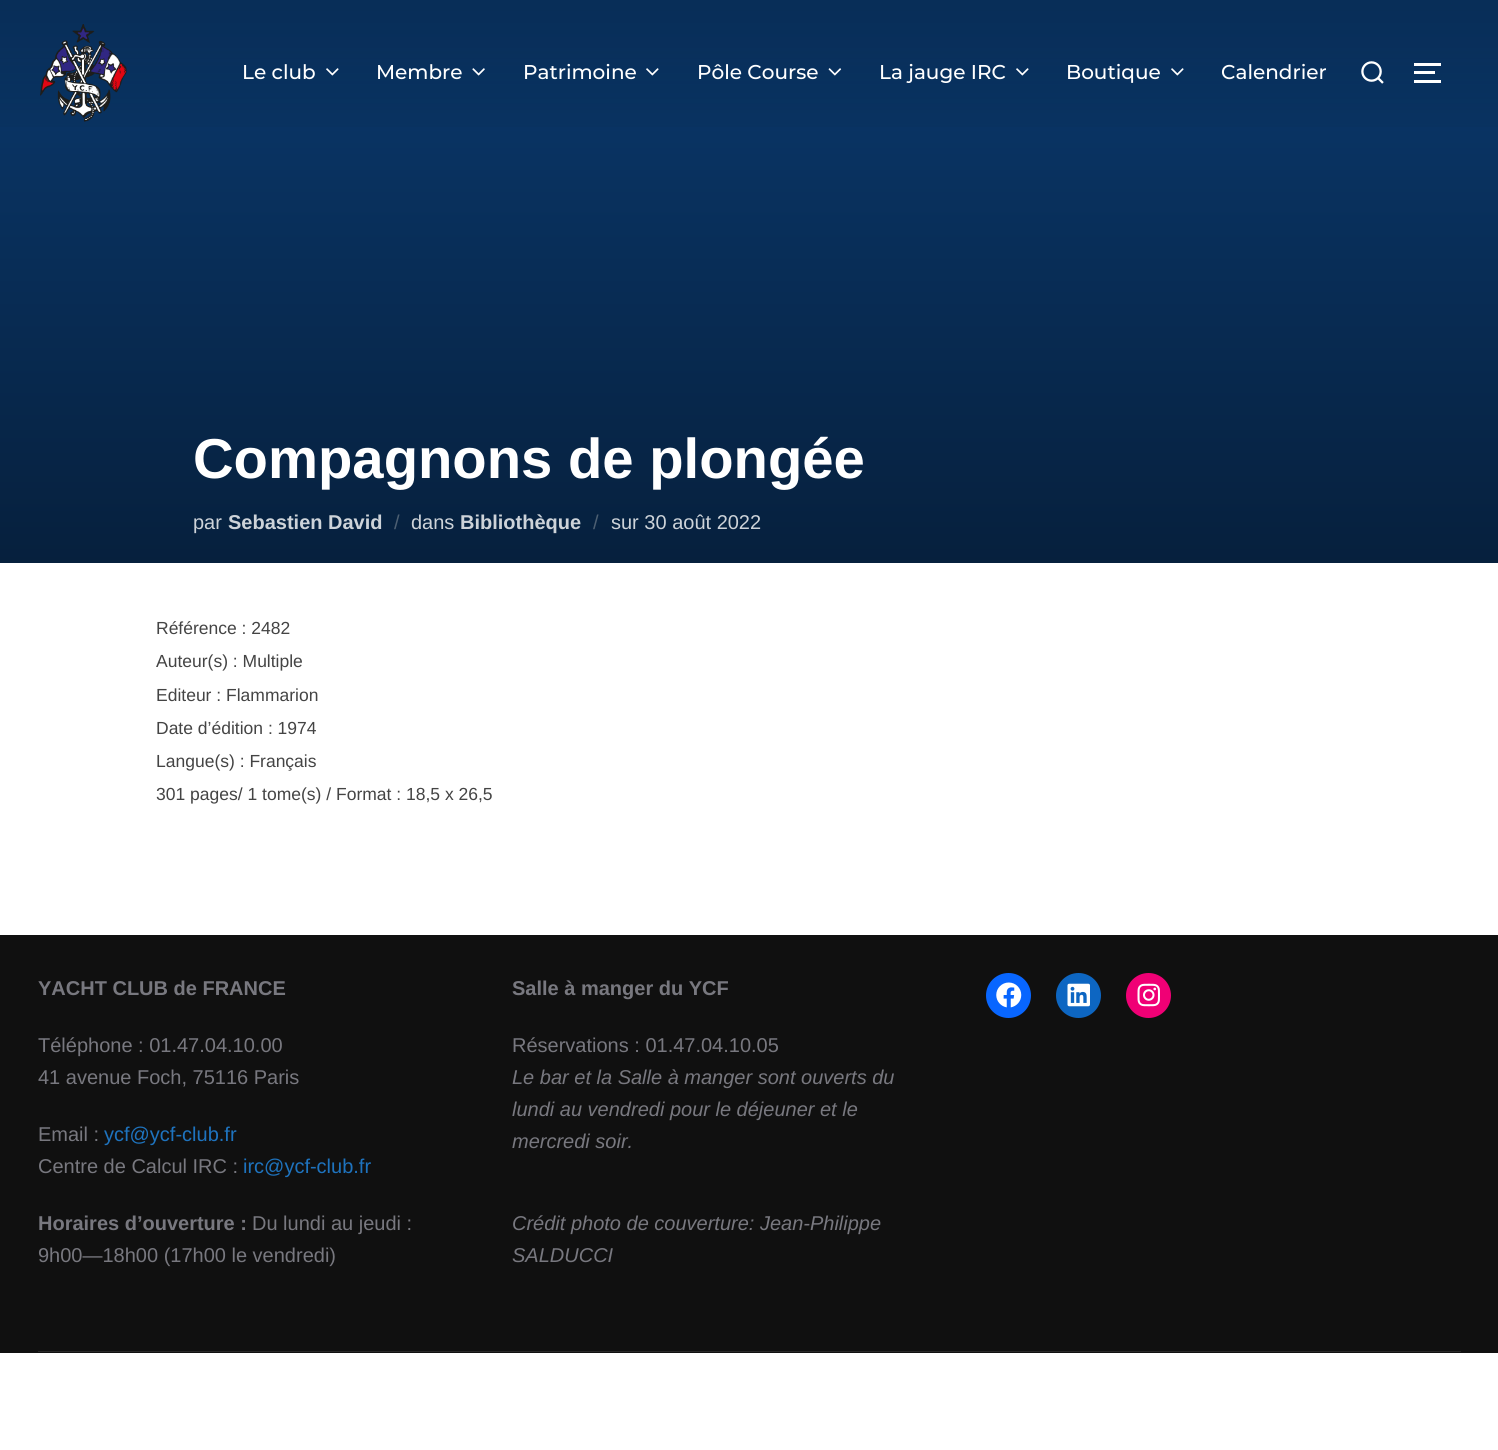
import math
import cairocffi as cairo

surface = cairo.ImageSurface(cairo.FORMAT_RGB24, 1498, 1450)
ctx = cairo.Context(surface)
options = cairo.FontOptions()
options.set_hint_metrics(cairo.HINT_METRICS_OFF)
options.set_hint_style(cairo.HINT_STYLE_NONE)
ctx.set_font_options(options)
ctx.set_miter_limit(4)


def rgb(r, g, b):
    ctx.set_source_rgb(r / 255, g / 255, b / 255)


def face(family, size, italic, bold):
    ctx.select_font_face(family, cairo.FONT_SLANT_ITALIC if italic else cairo.FONT_SLANT_NORMAL, cairo.FONT_WEIGHT_BOLD if bold else cairo.FONT_WEIGHT_NORMAL)
    ctx.set_font_size(size)


def label(x, y, s):
    ctx.move_to(x, y)
    ctx.show_text(s)


def rect(x, y, w, h):
    ctx.rectangle(x, y, w, h)
    ctx.fill()


def image(path, x, y, w, h):
    ctx.save()
    ctx.set_source_surface(cairo.ImageSurface.create_from_png(path), x, y)
    ctx.rectangle(x, y, w, h)
    ctx.fill()
    ctx.restore()


rgb(255, 255, 255)
ctx.paint()
gradient = cairo.LinearGradient(749, 0, 749, 563)
gradient.add_color_stop_rgba(0, 0.039, 0.224, 0.431, 1)
gradient.add_color_stop_rgba(1, 0.024, 0.125, 0.239, 1)
ctx.set_source(gradient)
rect(0, 0, 1498, 563)
gradient = cairo.LinearGradient(749, 0, 749, 145)
gradient.add_color_stop_rgba(0.01, 0, 0, 0, 0.2)
gradient.add_color_stop_rgba(1, 0, 0, 0, 0)
ctx.set_source(gradient)
rect(0, 0, 1498, 127)
image('image0.png', 40, 24, 87, 98)
face('Montserrat Medium', 20, 0, 0)
rgb(255, 255, 255)
label(242, 79, 'Le club')
image('image1.png', 326, 68, 13, 8)
label(376, 79, 'Membre')
image('image2.png', 472, 68, 13, 8)
label(523, 79, 'Patrimoine')
image('image1.png', 646, 68, 13, 8)
label(697, 79, 'Pôle Course')
image('image3.png', 828, 68, 14, 8)
label(879, 79, 'La jauge IRC')
image('image1.png', 1016, 68, 13, 8)
label(1066, 79, 'Boutique')
image('image1.png', 1171, 68, 13, 8)
label(1221, 79, 'Calendrier')
image('image4.png', 1361, 61, 23, 23)
rect(1414, 63, 27, 3)
rect(1414, 71, 21, 3)
rect(1414, 80, 27, 3)
face('Liberation Sans', 56.25, 0, 1)
label(193, 478, 'Compagnons de plongée')
face('Liberation Sans', 20, 0, 0)
rgb(205, 211, 217)
label(193, 529, 'par')
face('Liberation Sans', 20, 0, 1)
label(228, 529, 'Sebastien David')
face('Liberation Sans', 20, 0, 0)
rgb(76, 95, 114)
label(394, 529, '/')
rgb(205, 211, 217)
label(411, 529, 'dans')
face('Liberation Sans', 20, 0, 1)
label(460, 529, 'Bibliothèque')
face('Liberation Sans', 20, 0, 0)
rgb(76, 95, 114)
label(593, 529, '/')
rgb(205, 211, 217)
label(611, 529, 'sur 30 août 2022')
face('Liberation Sans', 17.5, 0, 0)
rgb(68, 68, 68)
label(156, 634, 'Référence : 2482')
label(156, 667, 'Auteur(s) : Multiple')
label(156, 701, 'Editeur : Flammarion')
label(156, 734, 'Date d’édition : 1974')
label(156, 767, 'Langue(s) : Français')
label(156, 800, '301 pages/ 1 tome(s) / Format : 18,5 x 26,5')
rgb(16, 16, 16)
rect(0, 935, 1498, 418)
face('Liberation Sans', 20, 0, 1)
rgb(120, 120, 127)
label(38, 995, 'YACHT CLUB de FRANCE')
face('Liberation Sans', 20, 0, 0)
label(38, 1052, 'Téléphone : 01.47.04.10.00')
label(38, 1084, '41 avenue Foch, 75116 Paris')
label(38, 1141, 'Email :')
rgb(30, 115, 190)
label(104, 1141, 'ycf@ycf-club.fr')
rgb(120, 120, 127)
label(38, 1173, 'Centre de Calcul IRC :')
rgb(30, 115, 190)
label(243, 1173, 'irc@ycf-club.fr')
face('Liberation Sans', 20, 0, 1)
rgb(120, 120, 127)
label(38, 1230, 'Horaires d’ouverture :')
face('Liberation Sans', 20, 0, 0)
label(252, 1230, 'Du lundi au jeudi :')
label(38, 1262, '9h00—18h00 (17h00 le vendredi)')
face('Liberation Sans', 20, 0, 1)
label(512, 995, 'Salle à manger du YCF')
face('Liberation Sans', 20, 0, 0)
label(512, 1052, 'Réservations : 01.47.04.10.05')
face('Liberation Sans', 20, 1, 0)
label(512, 1084, 'Le bar et la Salle à manger sont ouverts du')
label(512, 1116, 'lundi au vendredi pour le déjeuner et le')
label(512, 1148, 'mercredi soir.')
label(512, 1230, 'Crédit photo de couverture: Jean-Philippe')
label(512, 1262, 'SALDUCCI')
rgb(8, 102, 255)
ctx.new_path()
ctx.arc(1008.5, 995.5, 22.5, 0, 2 * math.pi)
ctx.fill()
image('image5.png', 996, 982, 26, 26)
rgb(13, 102, 194)
ctx.arc(1078.5, 995.5, 22.5, 0, 2 * math.pi)
ctx.fill()
image('image6.png', 1067, 983, 23, 24)
rgb(240, 0, 117)
ctx.arc(1148.5, 995.5, 22.5, 0, 2 * math.pi)
ctx.fill()
image('image7.png', 1137, 983, 23, 24)
rgb(40, 40, 40)
rect(38, 1351, 1423, 1)
surface.write_to_png('render.png')
